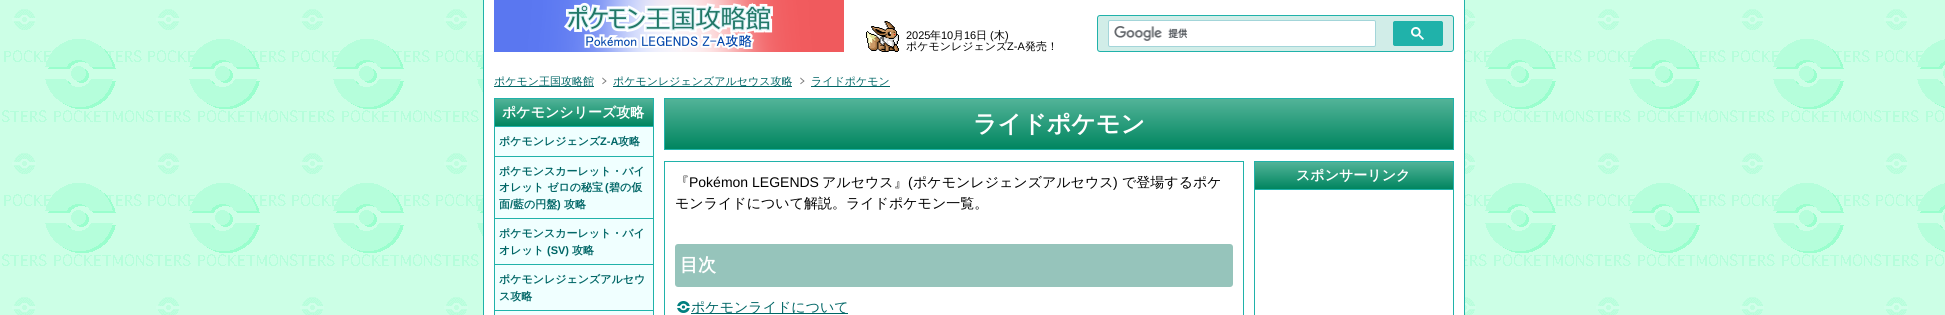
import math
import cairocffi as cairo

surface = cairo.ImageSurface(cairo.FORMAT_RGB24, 1945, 315)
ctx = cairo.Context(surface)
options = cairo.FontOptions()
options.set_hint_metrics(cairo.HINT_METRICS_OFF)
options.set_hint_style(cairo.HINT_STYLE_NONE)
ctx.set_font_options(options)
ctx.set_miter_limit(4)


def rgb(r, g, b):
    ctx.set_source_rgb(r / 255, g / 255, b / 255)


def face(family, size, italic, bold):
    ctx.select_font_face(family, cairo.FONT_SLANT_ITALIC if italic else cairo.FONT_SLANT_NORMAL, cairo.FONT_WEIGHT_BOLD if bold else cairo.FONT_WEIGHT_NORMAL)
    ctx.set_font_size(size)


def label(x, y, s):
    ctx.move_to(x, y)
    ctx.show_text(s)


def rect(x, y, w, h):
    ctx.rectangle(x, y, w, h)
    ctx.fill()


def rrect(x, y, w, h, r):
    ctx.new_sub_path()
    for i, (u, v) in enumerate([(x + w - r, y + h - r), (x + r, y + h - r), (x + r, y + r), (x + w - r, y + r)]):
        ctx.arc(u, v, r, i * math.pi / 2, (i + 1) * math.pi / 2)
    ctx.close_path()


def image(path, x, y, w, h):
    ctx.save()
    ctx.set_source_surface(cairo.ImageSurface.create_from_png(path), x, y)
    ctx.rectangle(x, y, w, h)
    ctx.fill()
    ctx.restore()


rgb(255, 255, 255)
ctx.paint()
image('image0.png', 0, 0, 1945, 315)
rgb(255, 255, 255)
ctx.rectangle(483.5, -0.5, 981, 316)
ctx.fill_preserve()
rgb(32, 178, 170)
ctx.set_line_width(1)
ctx.stroke()
image('image1.png', 494, 0, 350, 52)
image('image2.png', 866, 21, 33, 31)
face('Liberation Sans', 11, 0, 0)
rgb(0, 0, 0)
label(906, 39, '2025')
face('WenQuanYi Zen Hei Medium', 11, 0, 0)
label(930, 39, '年')
face('Liberation Sans', 11, 0, 0)
label(941, 39, '10')
face('WenQuanYi Zen Hei Medium', 11, 0, 0)
label(953, 39, '月')
face('Liberation Sans', 11, 0, 0)
label(964, 39, '16')
face('WenQuanYi Zen Hei Medium', 11, 0, 0)
label(976, 39, '日')
face('Liberation Sans', 11, 0, 0)
label(990, 39, '(')
face('WenQuanYi Zen Hei Medium', 11, 0, 0)
label(994, 39, '木')
face('Liberation Sans', 11, 0, 0)
label(1005, 39, ')')
face('WenQuanYi Zen Hei Medium', 11, 0, 0)
label(906, 50, 'ポケモンレジェンズ')
face('Liberation Sans', 11, 0, 0)
label(1007, 50, 'Z-A')
face('WenQuanYi Zen Hei Medium', 11, 0, 0)
label(1025, 50, '発売！')
rgb(209, 237, 232)
rrect(1097.5, 15.5, 356, 36, 2.5)
ctx.fill_preserve()
rgb(32, 178, 170)
ctx.stroke()
rgb(255, 255, 255)
rrect(1108.5, 20.5, 267, 26, 1.5)
ctx.fill_preserve()
rgb(163, 213, 217)
ctx.stroke()
image('image3.png', 1114, 26, 74, 15)
rgb(32, 178, 170)
rrect(1393.5, 21.5, 49, 24, 1.5)
ctx.fill_preserve()
ctx.stroke()
image('image4.png', 1411, 27, 13, 13)
rgb(0, 102, 102)
rect(494, 86, 100, 1)
label(494, 85, 'ポケモン王国攻略館')
image('image5.png', 602, 77, 5, 8)
rect(613, 86, 179, 1)
label(613, 85, 'ポケモンレジェンズアルセウス攻略')
image('image5.png', 800, 77, 5, 8)
rect(811, 86, 79, 1)
label(811, 85, 'ライドポケモン')
gradient = cairo.LinearGradient(574, 99, 574, 126)
gradient.add_color_stop_rgba(0, 0.322, 0.702, 0.596, 1)
gradient.add_color_stop_rgba(1, 0, 0.522, 0.373, 1)
ctx.set_source(gradient)
rect(495, 99, 158, 27)
rgb(32, 178, 170)
rect(494, 98, 160, 1)
rect(653, 98, 1, 28)
rect(494, 98, 1, 28)
face('WenQuanYi Zen Hei', 14, 0, 1)
rgb(255, 255, 255)
label(502, 117, 'ポケモンシリーズ攻略')
rgb(240, 255, 255)
rect(495, 127, 158, 188)
rgb(32, 178, 170)
rect(494, 126, 160, 1)
rect(653, 126, 1, 30)
rect(494, 126, 1, 30)
face('WenQuanYi Zen Hei', 11, 0, 1)
rgb(0, 102, 102)
label(499, 145, 'ポケモンレジェンズ')
face('Liberation Sans', 11, 0, 1)
label(600, 145, 'Z-A')
face('WenQuanYi Zen Hei', 11, 0, 1)
label(618, 145, '攻略')
rgb(32, 178, 170)
rect(494, 156, 160, 1)
rect(653, 156, 1, 62)
rect(494, 156, 1, 62)
rgb(0, 102, 102)
label(499, 175, 'ポケモンスカーレット・バイ')
label(499, 191, 'オレット ゼロの秘宝')
face('Liberation Sans', 11, 0, 1)
label(605, 191, '(')
face('WenQuanYi Zen Hei', 11, 0, 1)
label(609, 191, '碧の仮')
label(499, 208, '面')
face('Liberation Sans', 11, 0, 1)
label(510, 208, '/')
face('WenQuanYi Zen Hei', 11, 0, 1)
label(513, 208, '藍の円盤')
face('Liberation Sans', 11, 0, 1)
label(557, 208, ')')
face('WenQuanYi Zen Hei', 11, 0, 1)
label(564, 208, '攻略')
rgb(32, 178, 170)
rect(494, 218, 160, 1)
rect(653, 218, 1, 46)
rect(494, 218, 1, 46)
rgb(0, 102, 102)
label(499, 237, 'ポケモンスカーレット・バイ')
label(499, 254, 'オレット')
face('Liberation Sans', 11, 0, 1)
label(547, 254, '(SV)')
face('WenQuanYi Zen Hei', 11, 0, 1)
label(572, 254, '攻略')
rgb(32, 178, 170)
rect(494, 264, 160, 1)
rect(653, 264, 1, 46)
rect(494, 264, 1, 46)
rgb(0, 102, 102)
label(499, 283, 'ポケモンレジェンズアルセウ')
label(499, 300, 'ス攻略')
rgb(32, 178, 170)
rect(494, 310, 160, 1)
rect(653, 310, 1, 5)
rect(494, 310, 1, 5)
gradient = cairo.LinearGradient(1059, 99, 1059, 149)
gradient.add_color_stop_rgba(0, 0.322, 0.702, 0.596, 1)
gradient.add_color_stop_rgba(1, 0, 0.522, 0.373, 1)
ctx.set_source(gradient)
rect(665, 99, 788, 50)
ctx.rectangle(664.5, 98.5, 789, 51)
rgb(32, 178, 170)
ctx.stroke()
face('WenQuanYi Zen Hei', 24, 0, 1)
rgb(255, 255, 255)
label(973, 132, 'ライドポケモン')
ctx.rectangle(664.5, 161.5, 579, 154)
rgb(32, 178, 170)
ctx.stroke()
face('WenQuanYi Zen Hei Medium', 14, 0, 0)
rgb(0, 0, 0)
label(675, 187, '『')
face('Liberation Sans', 14, 0, 0)
label(689, 187, 'Pokémon LEGENDS')
face('WenQuanYi Zen Hei Medium', 14, 0, 0)
label(822, 187, 'アルセウス』')
face('Liberation Sans', 14, 0, 0)
label(908, 187, '(')
face('WenQuanYi Zen Hei Medium', 14, 0, 0)
label(913, 187, 'ポケモンレジェンズアルセウス')
face('Liberation Sans', 14, 0, 0)
label(1113, 187, ')')
face('WenQuanYi Zen Hei Medium', 14, 0, 0)
label(1122, 187, 'で登場するポケ')
label(675, 208, 'モンライドについて解説。ライドポケモン一覧。')
rgb(150, 196, 187)
rrect(675, 244, 558, 43, 3)
ctx.fill()
face('WenQuanYi Zen Hei', 18, 0, 1)
rgb(255, 255, 255)
label(680, 271, '目次')
image('image6.png', 677, 301, 13, 12)
rgb(0, 102, 102)
rect(691, 313, 157, 1)
face('WenQuanYi Zen Hei Medium', 14, 0, 0)
label(691, 312, 'ポケモンライドについて')
ctx.rectangle(1254.5, 161.5, 199, 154)
rgb(32, 178, 170)
ctx.stroke()
gradient = cairo.LinearGradient(1354, 162, 1354, 189)
gradient.add_color_stop_rgba(0, 0.322, 0.702, 0.596, 1)
gradient.add_color_stop_rgba(1, 0, 0.522, 0.373, 1)
ctx.set_source(gradient)
rect(1255, 162, 198, 27)
rgb(32, 178, 170)
rect(1255, 189, 198, 1)
face('WenQuanYi Zen Hei', 14, 0, 1)
rgb(255, 255, 255)
label(1296, 180, 'スポンサーリンク')
surface.write_to_png('render.png')
